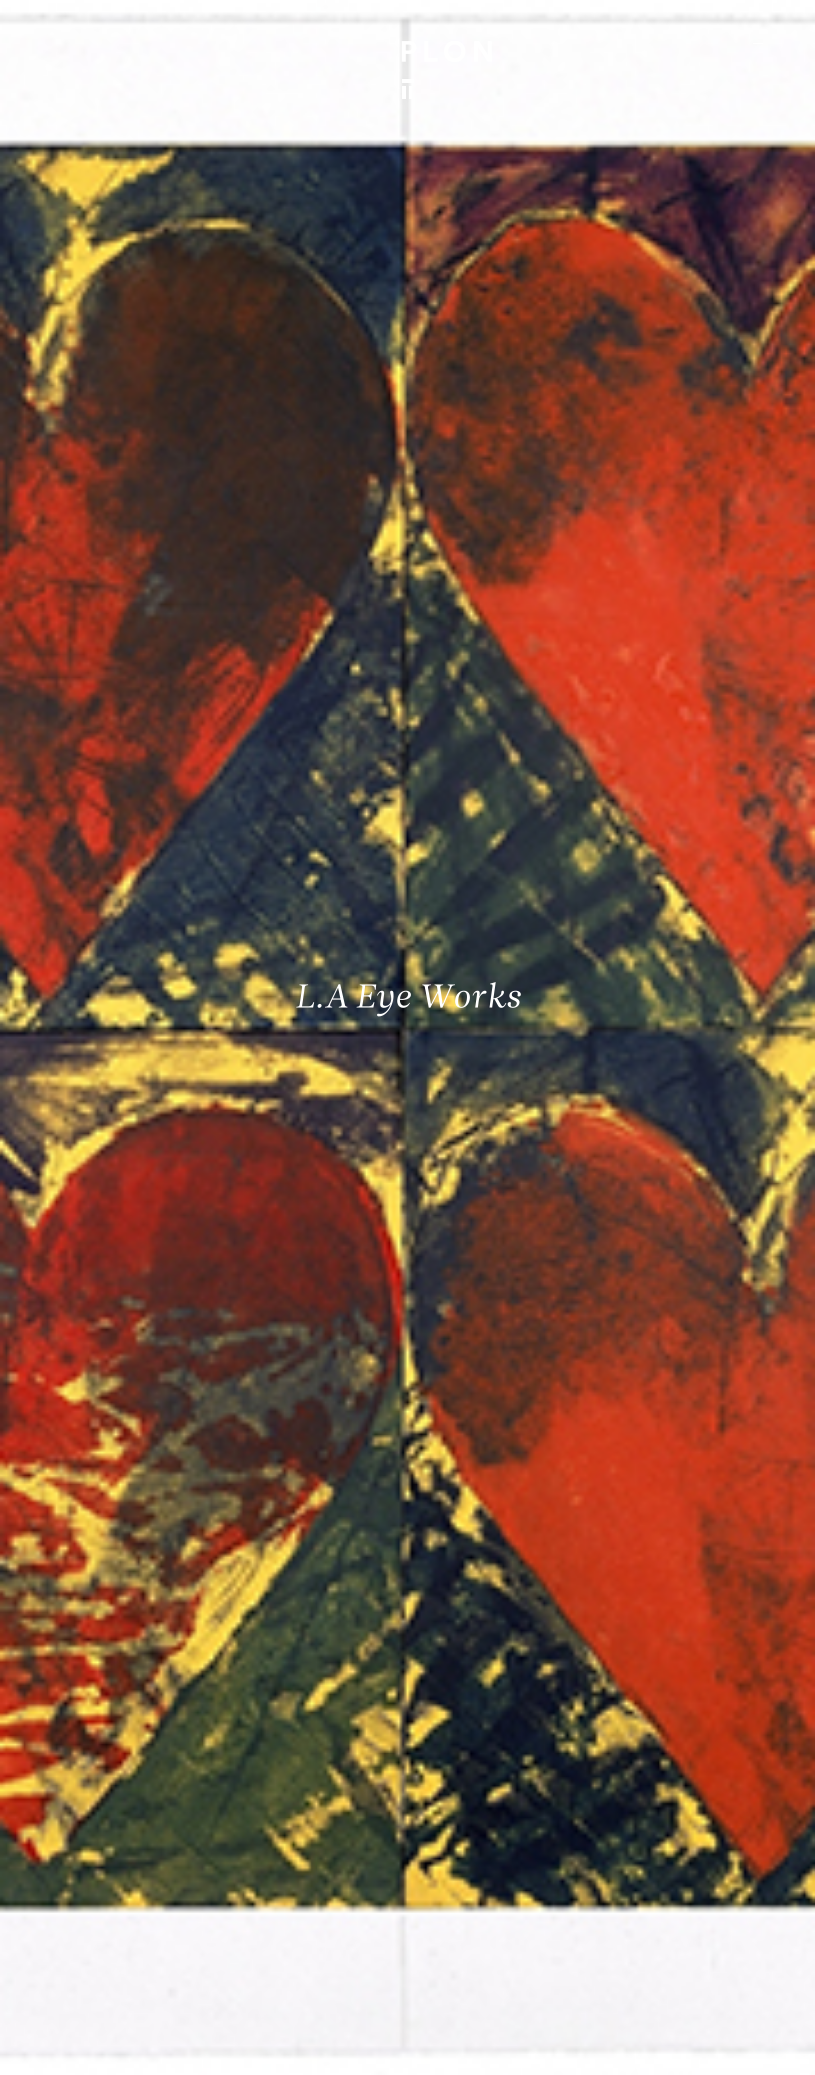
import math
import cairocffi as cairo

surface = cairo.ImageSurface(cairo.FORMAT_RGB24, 815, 2075)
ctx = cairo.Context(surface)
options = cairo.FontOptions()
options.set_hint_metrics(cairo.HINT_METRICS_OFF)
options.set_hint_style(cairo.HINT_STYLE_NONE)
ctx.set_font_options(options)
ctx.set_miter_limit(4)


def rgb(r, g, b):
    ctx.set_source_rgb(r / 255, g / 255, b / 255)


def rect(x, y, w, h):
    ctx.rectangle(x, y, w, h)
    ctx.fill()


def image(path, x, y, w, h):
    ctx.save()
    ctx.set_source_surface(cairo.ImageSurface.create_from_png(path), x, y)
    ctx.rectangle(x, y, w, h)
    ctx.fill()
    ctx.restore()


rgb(255, 255, 255)
ctx.paint()
image('image0.png', 0, 0, 815, 2075)
image('image1.png', 296, 982, 225, 35)
image('image2.png', 401, 41, 91, 21)
rgb(255, 255, 255)
rect(402, 86, 4, 13)
rect(409, 86, 3, 13)
rect(402, 79, 12, 4)
rect(753, 43, 10, 1)
surface.write_to_png('render.png')
